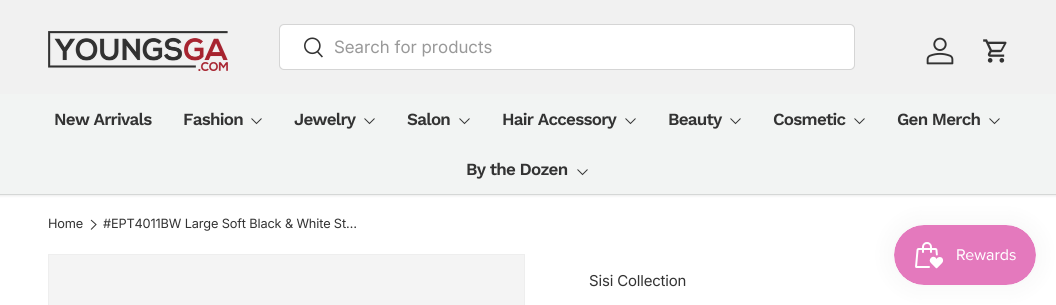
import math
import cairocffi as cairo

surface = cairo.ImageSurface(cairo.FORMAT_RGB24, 1056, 305)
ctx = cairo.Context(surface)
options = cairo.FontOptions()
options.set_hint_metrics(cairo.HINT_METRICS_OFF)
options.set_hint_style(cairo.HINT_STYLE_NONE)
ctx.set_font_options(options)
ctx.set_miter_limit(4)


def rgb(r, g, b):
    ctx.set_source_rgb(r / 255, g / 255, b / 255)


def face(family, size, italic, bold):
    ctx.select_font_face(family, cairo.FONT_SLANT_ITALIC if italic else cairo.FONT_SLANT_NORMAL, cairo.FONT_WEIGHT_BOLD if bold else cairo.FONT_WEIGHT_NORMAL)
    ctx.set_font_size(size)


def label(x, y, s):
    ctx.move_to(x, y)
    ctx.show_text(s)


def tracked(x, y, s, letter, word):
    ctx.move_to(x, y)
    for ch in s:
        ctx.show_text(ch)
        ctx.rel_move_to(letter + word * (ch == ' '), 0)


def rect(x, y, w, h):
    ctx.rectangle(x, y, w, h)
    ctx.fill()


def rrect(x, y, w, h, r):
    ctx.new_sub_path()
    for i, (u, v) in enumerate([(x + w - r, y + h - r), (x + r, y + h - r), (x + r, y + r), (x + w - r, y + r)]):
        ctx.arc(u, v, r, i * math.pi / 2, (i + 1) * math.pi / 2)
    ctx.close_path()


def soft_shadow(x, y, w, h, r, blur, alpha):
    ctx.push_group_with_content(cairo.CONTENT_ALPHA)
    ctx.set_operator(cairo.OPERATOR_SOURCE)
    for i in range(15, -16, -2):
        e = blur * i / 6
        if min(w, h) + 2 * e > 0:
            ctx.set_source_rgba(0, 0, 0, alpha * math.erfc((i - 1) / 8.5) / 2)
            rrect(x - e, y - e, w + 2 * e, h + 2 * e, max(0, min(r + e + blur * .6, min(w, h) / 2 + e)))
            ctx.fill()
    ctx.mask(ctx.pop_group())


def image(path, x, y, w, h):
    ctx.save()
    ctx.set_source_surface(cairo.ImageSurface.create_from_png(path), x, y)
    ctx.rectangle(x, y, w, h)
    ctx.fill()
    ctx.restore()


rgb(255, 255, 255)
ctx.paint()
rgb(0, 0, 0)
soft_shadow(-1, -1, 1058, 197, 0, 1.5, 0.08)
rgb(241, 241, 241)
rect(0, 0, 1056, 94)
image('image0.png', 48, 31, 180, 40)
rrect(279.5, 24.5, 575, 45, 4.5)
rgb(213, 213, 213)
ctx.set_line_width(1)
ctx.stroke()
rgb(255, 255, 255)
rrect(280, 25, 574, 44, 5)
ctx.fill()
image('image1.png', 304, 37, 19, 21)
face('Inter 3', 17, 0, 0)
rgb(153, 153, 153)
label(334, 53, 'Search for products')
image('image2.png', 926, 37, 28, 28)
image('image3.png', 983, 39, 24, 24)
rgb(242, 244, 243)
rect(0, 94, 1056, 100)
face('Work Sans SemiBold', 17, 0, 0)
rgb(51, 51, 51)
tracked(54, 125, 'New Arrivals', -0.75, 0)
tracked(183, 125, 'Fashion', -0.75, 0)
ctx.new_path()
ctx.move_to(261.5, 118.5)
ctx.line_to(256.5, 123.5)
ctx.line_to(251.5, 118.5)
ctx.stroke()
tracked(294, 125, 'Jewelry', -0.75, 0)
ctx.new_path()
ctx.move_to(374.5, 118.5)
ctx.line_to(369.5, 123.5)
ctx.line_to(364.5, 118.5)
ctx.stroke()
tracked(407, 125, 'Salon', -0.75, 0)
ctx.new_path()
ctx.move_to(469.5, 118.5)
ctx.line_to(464.5, 123.5)
ctx.line_to(459.5, 118.5)
ctx.stroke()
tracked(502, 125, 'Hair Accessory', -0.75, 0)
ctx.new_path()
ctx.move_to(635.5, 118.5)
ctx.line_to(630.5, 123.5)
ctx.line_to(625.5, 118.5)
ctx.stroke()
tracked(668, 125, 'Beauty', -0.75, 0)
ctx.new_path()
ctx.move_to(740.5, 118.5)
ctx.line_to(735.5, 123.5)
ctx.line_to(730.5, 118.5)
ctx.stroke()
tracked(773, 125, 'Cosmetic', -0.75, 0)
ctx.new_path()
ctx.move_to(864.5, 118.5)
ctx.line_to(859.5, 123.5)
ctx.line_to(854.5, 118.5)
ctx.stroke()
tracked(897, 125, 'Gen Merch', -0.75, 0)
ctx.new_path()
ctx.move_to(999.5, 118.5)
ctx.line_to(994.5, 123.5)
ctx.line_to(989.5, 118.5)
ctx.stroke()
tracked(466, 175, 'By the Dozen', -0.75, 0)
ctx.new_path()
ctx.move_to(587.5, 169.5)
ctx.line_to(582.5, 174.5)
ctx.line_to(577.5, 169.5)
ctx.stroke()
rgb(213, 215, 214)
rect(0, 194, 1056, 1)
face('Inter', 12.75, 0, 0)
rgb(51, 51, 51)
tracked(48, 228, 'Home', -0.15, 0)
ctx.new_path()
ctx.move_to(91, 220)
ctx.line_to(96, 224.5)
ctx.line_to(91, 229.5)
ctx.stroke()
tracked(103, 228, '#EPT4011BW Large Soft Black & White St…', -0.15, 0)
rgb(244, 244, 244)
ctx.rectangle(48.5, 254.5, 476, 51)
ctx.fill_preserve()
rgb(238, 238, 238)
ctx.stroke()
face('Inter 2', 15, 0, 0)
rgb(51, 51, 51)
tracked(589, 286, 'Sisi Collection', -0.15, 0)
rgb(0, 0, 0)
soft_shadow(894, 225, 142, 60, 30, 12.5, 0.05)
image('image4.png', 894, 225, 142, 60)
surface.write_to_png('render.png')
